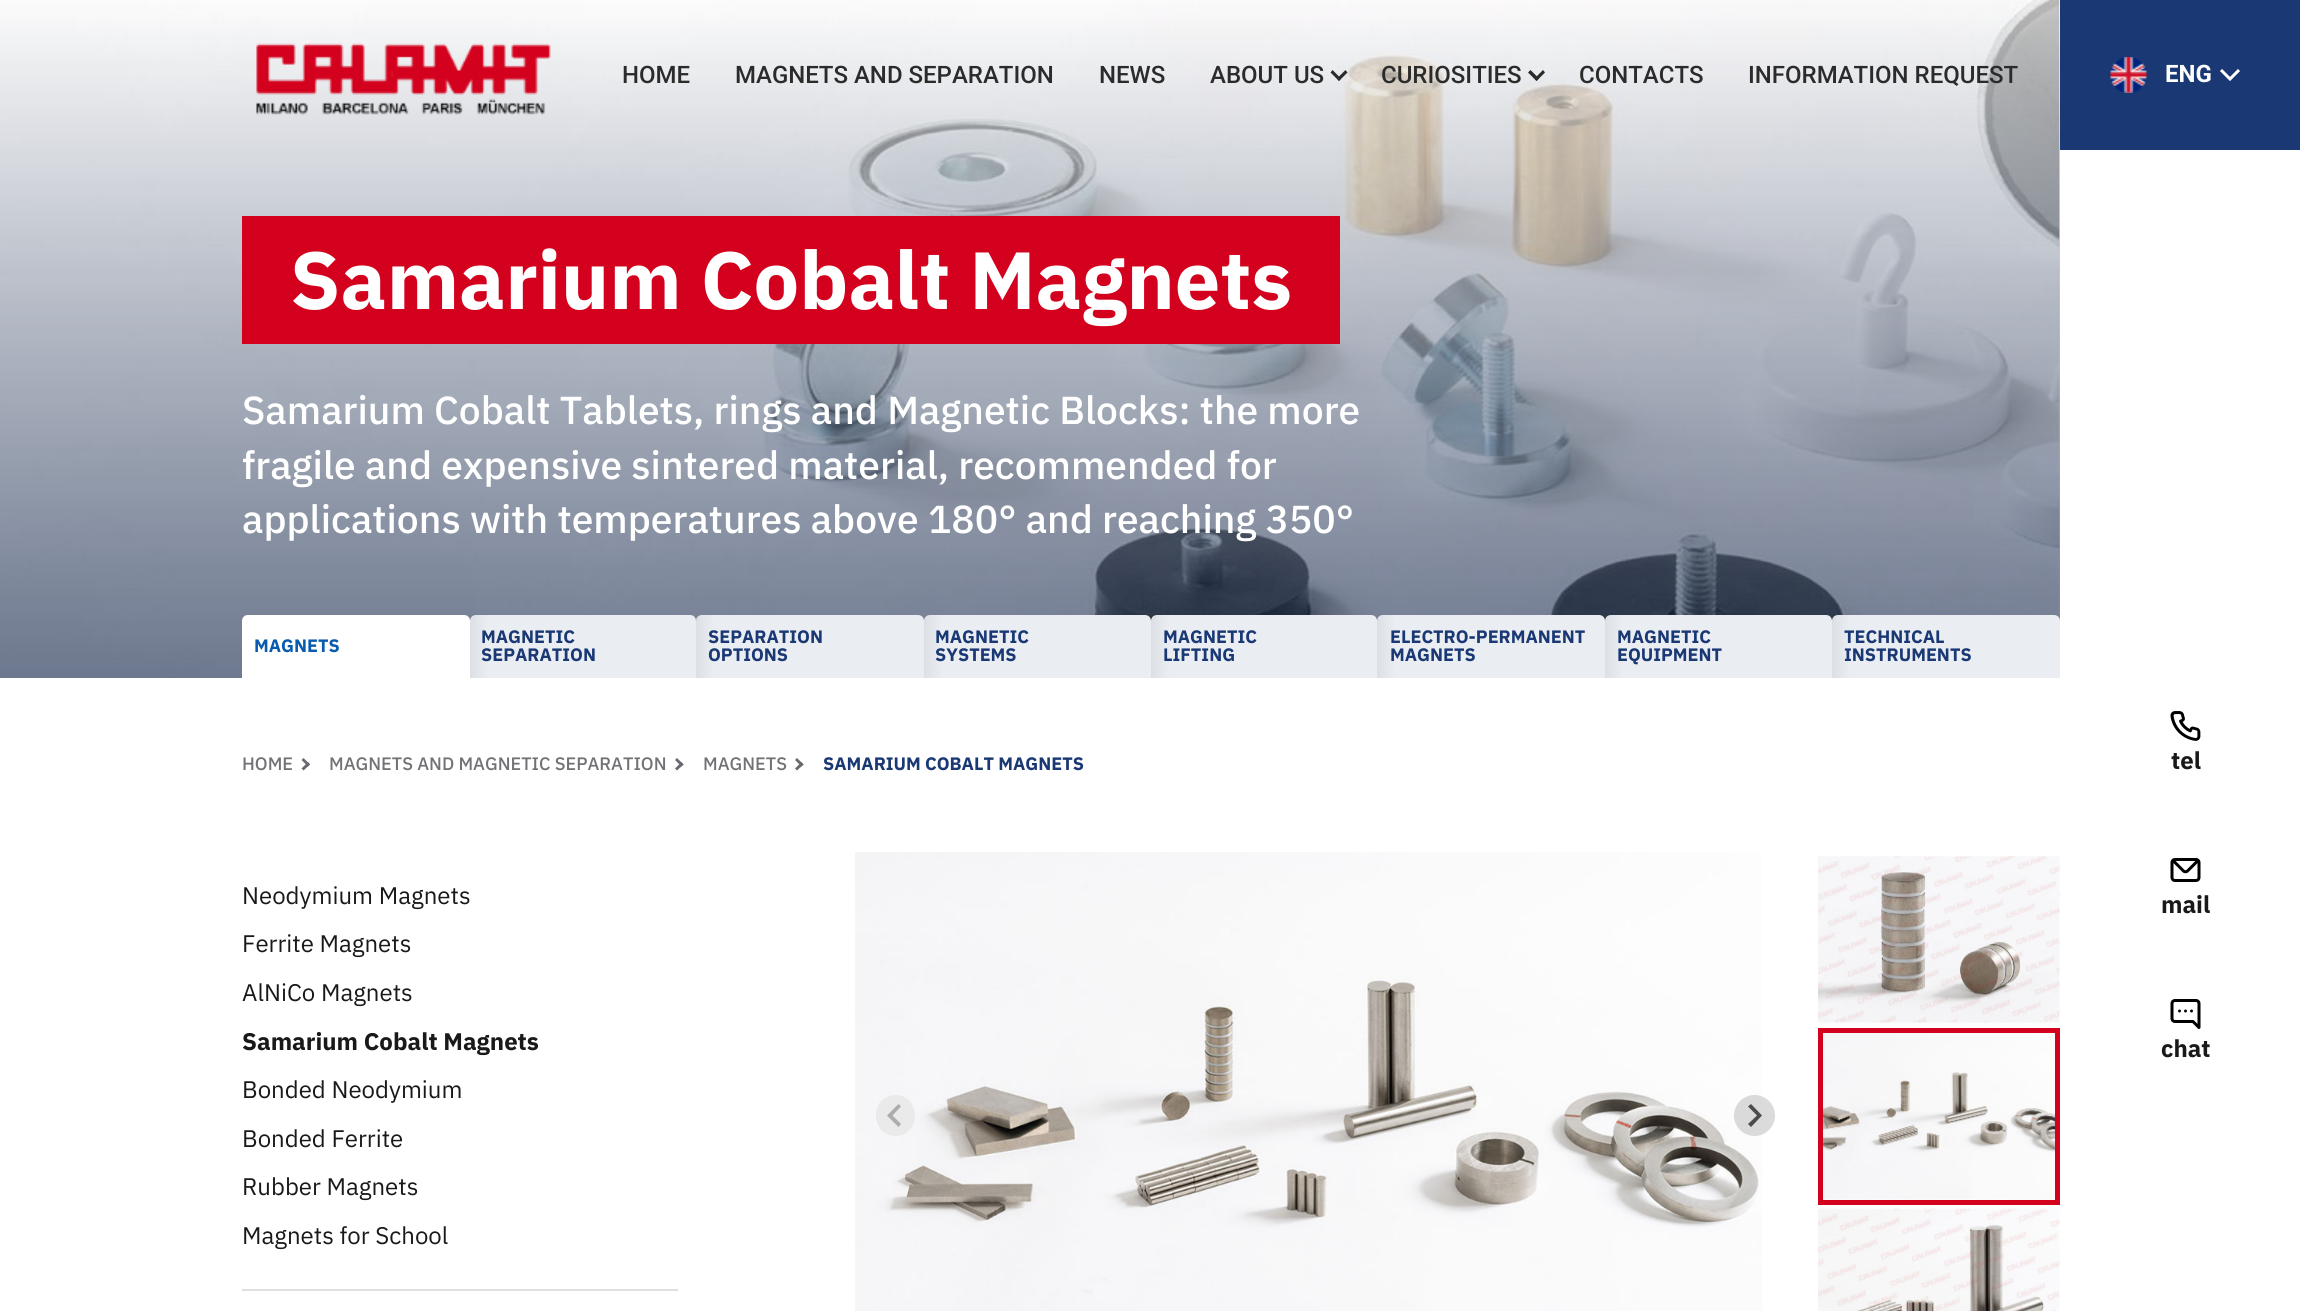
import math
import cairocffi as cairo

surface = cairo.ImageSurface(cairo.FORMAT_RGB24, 2300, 1311)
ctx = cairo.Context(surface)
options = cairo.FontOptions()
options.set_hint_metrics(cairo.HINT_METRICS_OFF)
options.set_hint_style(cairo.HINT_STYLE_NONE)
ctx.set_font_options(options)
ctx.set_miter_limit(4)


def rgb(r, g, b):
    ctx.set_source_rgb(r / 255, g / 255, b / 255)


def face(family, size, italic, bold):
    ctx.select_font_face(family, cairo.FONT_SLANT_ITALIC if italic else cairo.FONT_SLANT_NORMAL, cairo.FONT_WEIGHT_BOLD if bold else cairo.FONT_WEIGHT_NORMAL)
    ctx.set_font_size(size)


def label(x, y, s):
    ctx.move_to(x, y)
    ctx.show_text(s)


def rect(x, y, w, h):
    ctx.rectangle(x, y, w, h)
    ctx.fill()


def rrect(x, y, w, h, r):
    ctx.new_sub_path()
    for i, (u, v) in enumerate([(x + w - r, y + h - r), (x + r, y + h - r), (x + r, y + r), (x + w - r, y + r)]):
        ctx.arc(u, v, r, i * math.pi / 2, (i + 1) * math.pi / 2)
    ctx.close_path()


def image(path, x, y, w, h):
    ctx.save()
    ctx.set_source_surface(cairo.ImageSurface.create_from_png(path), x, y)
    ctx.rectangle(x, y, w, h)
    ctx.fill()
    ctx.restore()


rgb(255, 255, 255)
ctx.paint()
image('image2.png', 0, 0, 2060, 678)
gradient = cairo.LinearGradient(1030, 678, 1030, 0)
gradient.add_color_stop_rgba(0, 0.055, 0.133, 0.282, 0.58)
gradient.add_color_stop_rgba(1, 1, 1, 1, 0.67)
ctx.set_source(gradient)
rect(0, 0, 2060, 678)
image('image0.png', 256, 43, 295, 72)
face('Roboto Medium', 24, 0, 0)
rgb(43, 43, 43)
label(622, 83, 'HOME')
label(735, 83, 'MAGNETS AND SEPARATION')
label(1099, 83, 'NEWS')
label(1210, 83, 'ABOUT US')
ctx.new_path()
ctx.move_to(1347.5, 72.5)
ctx.line_to(1339, 81)
ctx.line_to(1337, 78.5)
ctx.line_to(1345.5, 70)
ctx.close_path()
ctx.fill()
ctx.new_path()
ctx.move_to(1341, 78.5)
ctx.line_to(1339, 81)
ctx.line_to(1330.5, 72.5)
ctx.line_to(1332.5, 70)
ctx.close_path()
ctx.fill()
label(1381, 83, 'CURIOSITIES')
ctx.new_path()
ctx.move_to(1545, 72.5)
ctx.line_to(1536.5, 81)
ctx.line_to(1534.5, 78.5)
ctx.line_to(1543, 70)
ctx.close_path()
ctx.fill()
ctx.new_path()
ctx.move_to(1539, 78.5)
ctx.line_to(1536.5, 81)
ctx.line_to(1528, 72.5)
ctx.line_to(1530.5, 70)
ctx.close_path()
ctx.fill()
label(1579, 83, 'CONTACTS')
label(1748, 83, 'INFORMATION REQUEST')
rgb(25, 56, 116)
rect(2060, 0, 240, 150)
image('image1.png', 2110, 57, 37, 36)
face('Roboto', 24, 0, 1)
rgb(255, 255, 255)
label(2165, 82, 'ENG')
ctx.new_path()
ctx.move_to(2221, 70)
ctx.line_to(2230, 79)
ctx.line_to(2239, 70)
ctx.set_line_width(3)
ctx.stroke()
rgb(211, 1, 29)
rect(242, 216, 1098, 128)
face('IBM Plex Sans', 81, 0, 1)
rgb(255, 255, 255)
label(290, 309, 'Samarium Cobalt Magnets')
face('IBM Plex Sans Medium', 39, 0, 0)
label(242, 424, 'Samarium Cobalt Tablets, rings and Magnetic Blocks: the more')
label(242, 479, 'fragile and expensive sintered material, recommended for')
label(242, 533, 'applications with temperatures above 180° and reaching 350°')
ctx.new_path()
ctx.move_to(248, 615)
ctx.line_to(464, 615)
ctx.curve_to(467.5, 615, 470, 617.5, 470, 621)
ctx.line_to(470, 678)
ctx.line_to(242, 678)
ctx.line_to(242, 621)
ctx.curve_to(242, 617.5, 244.5, 615, 248, 615)
ctx.close_path()
ctx.fill()
face('IBM Plex Sans', 18, 0, 1)
rgb(8, 91, 174)
label(254, 652, 'MAGNETS')
gradient = cairo.LinearGradient(470, 647, 696, 647)
gradient.add_color_stop_rgba(0, 0.863, 0.878, 0.898, 1)
gradient.add_color_stop_rgba(0.08, 0.918, 0.929, 0.949, 1)
gradient.add_color_stop_rgba(1, 0.918, 0.929, 0.949, 1)
ctx.set_source(gradient)
ctx.new_path()
ctx.move_to(476, 615)
ctx.line_to(690, 615)
ctx.curve_to(693.5, 615, 696, 617.5, 696, 621)
ctx.line_to(696, 678)
ctx.line_to(470, 678)
ctx.line_to(470, 621)
ctx.curve_to(470, 617.5, 472.5, 615, 476, 615)
ctx.close_path()
ctx.fill()
rgb(25, 56, 116)
label(481, 643, 'MAGNETIC')
label(481, 661, 'SEPARATION')
gradient = cairo.LinearGradient(696, 647, 924, 647)
gradient.add_color_stop_rgba(0, 0.863, 0.878, 0.898, 1)
gradient.add_color_stop_rgba(0.08, 0.918, 0.929, 0.949, 1)
gradient.add_color_stop_rgba(1, 0.918, 0.929, 0.949, 1)
ctx.set_source(gradient)
ctx.new_path()
ctx.move_to(702, 615)
ctx.line_to(918, 615)
ctx.curve_to(921.5, 615, 924, 617.5, 924, 621)
ctx.line_to(924, 678)
ctx.line_to(696, 678)
ctx.line_to(696, 621)
ctx.curve_to(696, 617.5, 698.5, 615, 702, 615)
ctx.close_path()
ctx.fill()
rgb(25, 56, 116)
label(708, 643, 'SEPARATION')
label(708, 661, 'OPTIONS')
gradient = cairo.LinearGradient(924, 647, 1151, 647)
gradient.add_color_stop_rgba(0, 0.863, 0.878, 0.898, 1)
gradient.add_color_stop_rgba(0.08, 0.918, 0.929, 0.949, 1)
gradient.add_color_stop_rgba(1, 0.918, 0.929, 0.949, 1)
ctx.set_source(gradient)
ctx.new_path()
ctx.move_to(930, 615)
ctx.line_to(1145, 615)
ctx.curve_to(1148.5, 615, 1151, 617.5, 1151, 621)
ctx.line_to(1151, 678)
ctx.line_to(924, 678)
ctx.line_to(924, 621)
ctx.curve_to(924, 617.5, 926.5, 615, 930, 615)
ctx.close_path()
ctx.fill()
rgb(25, 56, 116)
label(935, 643, 'MAGNETIC')
label(935, 661, 'SYSTEMS')
gradient = cairo.LinearGradient(1151, 647, 1377, 647)
gradient.add_color_stop_rgba(0, 0.863, 0.878, 0.898, 1)
gradient.add_color_stop_rgba(0.08, 0.918, 0.929, 0.949, 1)
gradient.add_color_stop_rgba(1, 0.918, 0.929, 0.949, 1)
ctx.set_source(gradient)
ctx.new_path()
ctx.move_to(1157, 615)
ctx.line_to(1371, 615)
ctx.curve_to(1374.5, 615, 1377, 617.5, 1377, 621)
ctx.line_to(1377, 678)
ctx.line_to(1151, 678)
ctx.line_to(1151, 621)
ctx.curve_to(1151, 617.5, 1153.5, 615, 1157, 615)
ctx.close_path()
ctx.fill()
rgb(25, 56, 116)
label(1163, 643, 'MAGNETIC')
label(1163, 661, 'LIFTING')
gradient = cairo.LinearGradient(1377, 647, 1605, 647)
gradient.add_color_stop_rgba(0, 0.863, 0.878, 0.898, 1)
gradient.add_color_stop_rgba(0.08, 0.918, 0.929, 0.949, 1)
gradient.add_color_stop_rgba(1, 0.918, 0.929, 0.949, 1)
ctx.set_source(gradient)
ctx.new_path()
ctx.move_to(1383, 615)
ctx.line_to(1599, 615)
ctx.curve_to(1602.5, 615, 1605, 617.5, 1605, 621)
ctx.line_to(1605, 678)
ctx.line_to(1377, 678)
ctx.line_to(1377, 621)
ctx.curve_to(1377, 617.5, 1379.5, 615, 1383, 615)
ctx.close_path()
ctx.fill()
rgb(25, 56, 116)
label(1390, 643, 'ELECTRO-PERMANENT')
label(1390, 661, 'MAGNETS')
gradient = cairo.LinearGradient(1605, 647, 1832, 647)
gradient.add_color_stop_rgba(0, 0.863, 0.878, 0.898, 1)
gradient.add_color_stop_rgba(0.08, 0.918, 0.929, 0.949, 1)
gradient.add_color_stop_rgba(1, 0.918, 0.929, 0.949, 1)
ctx.set_source(gradient)
ctx.new_path()
ctx.move_to(1611, 615)
ctx.line_to(1826, 615)
ctx.curve_to(1829.5, 615, 1832, 617.5, 1832, 621)
ctx.line_to(1832, 678)
ctx.line_to(1605, 678)
ctx.line_to(1605, 621)
ctx.curve_to(1605, 617.5, 1607.5, 615, 1611, 615)
ctx.close_path()
ctx.fill()
rgb(25, 56, 116)
label(1617, 643, 'MAGNETIC')
label(1617, 661, 'EQUIPMENT')
gradient = cairo.LinearGradient(1832, 647, 2060, 647)
gradient.add_color_stop_rgba(0, 0.863, 0.878, 0.898, 1)
gradient.add_color_stop_rgba(0.08, 0.918, 0.929, 0.949, 1)
gradient.add_color_stop_rgba(1, 0.918, 0.929, 0.949, 1)
ctx.set_source(gradient)
ctx.new_path()
ctx.move_to(1838, 615)
ctx.line_to(2054, 615)
ctx.curve_to(2057.5, 615, 2060, 617.5, 2060, 621)
ctx.line_to(2060, 678)
ctx.line_to(1832, 678)
ctx.line_to(1832, 621)
ctx.curve_to(1832, 617.5, 1834.5, 615, 1838, 615)
ctx.close_path()
ctx.fill()
rgb(25, 56, 116)
label(1844, 643, 'TECHNICAL')
label(1844, 661, 'INSTRUMENTS')
face('IBM Plex Sans Medium', 18, 0, 0)
rgb(114, 114, 118)
label(242, 770, 'HOME')
rgb(105, 105, 111)
ctx.new_path()
ctx.move_to(303.5, 758)
ctx.line_to(310, 764.5)
ctx.line_to(308, 766.5)
ctx.line_to(301.5, 760)
ctx.close_path()
ctx.fill()
ctx.new_path()
ctx.move_to(308, 762)
ctx.line_to(310, 764.5)
ctx.line_to(303.5, 770.5)
ctx.line_to(301.5, 768.5)
ctx.close_path()
ctx.fill()
rgb(114, 114, 118)
label(329, 770, 'MAGNETS AND MAGNETIC SEPARATION')
rgb(105, 105, 111)
ctx.new_path()
ctx.move_to(677, 758)
ctx.line_to(683.5, 764.5)
ctx.line_to(681.5, 766.5)
ctx.line_to(675, 760)
ctx.close_path()
ctx.fill()
ctx.new_path()
ctx.move_to(681.5, 762)
ctx.line_to(683.5, 764.5)
ctx.line_to(677, 770.5)
ctx.line_to(675, 768.5)
ctx.close_path()
ctx.fill()
rgb(114, 114, 118)
label(703, 770, 'MAGNETS')
rgb(105, 105, 111)
ctx.new_path()
ctx.move_to(797, 758)
ctx.line_to(803.5, 764.5)
ctx.line_to(801.5, 766.5)
ctx.line_to(795, 760)
ctx.close_path()
ctx.fill()
ctx.new_path()
ctx.move_to(801.5, 762)
ctx.line_to(803.5, 764.5)
ctx.line_to(797, 770.5)
ctx.line_to(795, 768.5)
ctx.close_path()
ctx.fill()
face('IBM Plex Sans', 18, 0, 1)
rgb(25, 56, 116)
label(823, 770, 'SAMARIUM COBALT MAGNETS')
image('image3.png', 2170, 711, 31, 30)
face('IBM Plex Sans', 24, 0, 1)
rgb(24, 25, 24)
label(2171, 769, 'tel')
image('image4.png', 2170, 858, 31, 24)
label(2161, 913, 'mail')
image('image5.png', 2170, 999, 31, 30)
label(2161, 1057, 'chat')
rgb(224, 224, 224)
rect(242, 1289, 436, 2)
face('IBM Plex Sans', 24, 0, 0)
rgb(24, 25, 24)
label(242, 904, 'Neodymium Magnets')
label(242, 952, 'Ferrite Magnets')
label(242, 1001, 'AlNiCo Magnets')
face('IBM Plex Sans', 24, 0, 1)
label(242, 1050, 'Samarium Cobalt Magnets')
face('IBM Plex Sans', 24, 0, 0)
label(242, 1098, 'Bonded Neodymium')
label(242, 1147, 'Bonded Ferrite')
label(242, 1195, 'Rubber Magnets')
label(242, 1244, 'Magnets for School')
image('image6.png', 855, 852, 907, 459)
rgb(234, 234, 235)
rrect(876, 1095, 39, 41, 19.5)
ctx.fill()
rgb(172, 172, 174)
ctx.new_path()
ctx.move_to(898.5, 1104)
ctx.line_to(901, 1106.5)
ctx.line_to(892.5, 1115.5)
ctx.line_to(901, 1124)
ctx.line_to(898.5, 1127)
ctx.line_to(887, 1115.5)
ctx.close_path()
ctx.fill()
ctx.set_source_rgba(0.8, 0.8, 0.8, 0.7)
ctx.arc(1754.5, 1115.5, 20.5, 0, 2 * math.pi)
ctx.fill()
rgb(76, 76, 76)
ctx.new_path()
ctx.move_to(1751, 1104)
ctx.line_to(1748, 1106.5)
ctx.line_to(1757, 1115.5)
ctx.line_to(1748, 1124)
ctx.line_to(1751, 1127)
ctx.line_to(1762, 1115.5)
ctx.close_path()
ctx.fill()
image('image7.png', 1818, 856, 242, 168)
image('image8.png', 1823, 1033, 232, 167)
ctx.rectangle(1820.5, 1030.5, 237, 172)
rgb(211, 1, 29)
ctx.set_line_width(5)
ctx.stroke()
image('image9.png', 1818, 1208, 242, 103)
surface.write_to_png('render.png')
